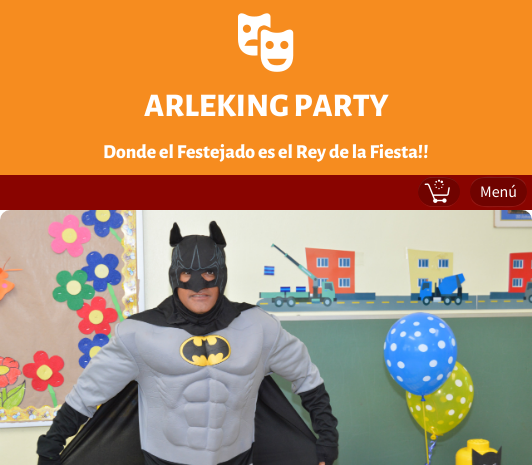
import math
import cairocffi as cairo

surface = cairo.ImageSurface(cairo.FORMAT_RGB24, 532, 465)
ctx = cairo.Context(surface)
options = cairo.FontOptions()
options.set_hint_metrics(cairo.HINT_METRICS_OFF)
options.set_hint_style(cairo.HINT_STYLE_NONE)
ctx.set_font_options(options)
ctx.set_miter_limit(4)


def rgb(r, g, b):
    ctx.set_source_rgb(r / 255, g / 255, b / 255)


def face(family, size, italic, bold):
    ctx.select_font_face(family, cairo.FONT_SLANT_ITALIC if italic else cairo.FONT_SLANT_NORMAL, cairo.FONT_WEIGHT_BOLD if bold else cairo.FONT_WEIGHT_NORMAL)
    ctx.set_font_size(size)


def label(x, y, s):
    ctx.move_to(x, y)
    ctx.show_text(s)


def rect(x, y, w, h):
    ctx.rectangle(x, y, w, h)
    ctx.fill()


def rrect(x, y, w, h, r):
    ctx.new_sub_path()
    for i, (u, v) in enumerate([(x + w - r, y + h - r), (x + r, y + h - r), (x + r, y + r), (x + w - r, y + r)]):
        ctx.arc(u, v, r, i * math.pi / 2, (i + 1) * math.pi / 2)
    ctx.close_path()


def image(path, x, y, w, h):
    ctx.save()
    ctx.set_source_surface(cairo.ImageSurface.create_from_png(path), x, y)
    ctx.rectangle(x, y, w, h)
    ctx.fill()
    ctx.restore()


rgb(255, 255, 255)
ctx.paint()
rgb(246, 140, 31)
rect(0, 0, 532, 175)
image('image0.png', 238, 13, 56, 59)
face('Alegreya Sans ExtraBold', 33, 0, 0)
rgb(255, 255, 255)
label(144, 116, 'ARLEKING PARTY')
face('Alegreya Sans ExtraBold', 19.75, 0, 0)
label(103, 158, 'Donde el Festejado es el Rey de la Fiesta!!')
rgb(137, 4, 0)
rect(0, 175, 532, 35)
rgb(146, 23, 19)
ctx.new_path()
ctx.move_to(418, 192)
ctx.curve_to(418, 199, 423, 205, 430, 207)
ctx.line_to(448, 207)
ctx.curve_to(455, 205, 460, 199, 460, 192)
ctx.curve_to(460, 200, 453, 206, 446, 206)
ctx.line_to(432, 206)
ctx.curve_to(425, 206, 418, 200, 418, 192)
ctx.close_path()
ctx.fill()
rgb(112, 3, 0)
rrect(418, 177, 42, 29, 14.5)
ctx.fill()
ctx.set_source_rgba(1, 1, 1, 0.1)
ctx.new_path()
ctx.move_to(432, 178)
ctx.curve_to(442, 178, 458, 176, 460, 190)
ctx.curve_to(458, 178, 448, 177, 439, 177)
ctx.line_to(430, 177)
ctx.curve_to(423, 179, 418, 185, 418, 192)
ctx.curve_to(419, 185, 424, 178, 432, 178)
ctx.close_path()
ctx.fill()
image('image1.png', 434, 179, 10, 11)
image('image2.png', 424, 183, 26, 20)
rgb(146, 23, 19)
ctx.new_path()
ctx.move_to(470, 192)
ctx.curve_to(470, 195, 471, 198, 472, 201)
ctx.curve_to(478, 209, 490, 207, 498, 207)
ctx.curve_to(507, 207, 519, 209, 525, 201)
ctx.curve_to(526, 198, 527, 195, 527, 192)
ctx.curve_to(526, 208, 510, 206, 498, 206)
ctx.curve_to(487, 206, 471, 208, 470, 192)
ctx.close_path()
ctx.fill()
rgb(112, 3, 0)
rrect(470, 177, 57, 29, 14.5)
ctx.fill()
ctx.set_source_rgba(1, 1, 1, 0.1)
ctx.new_path()
ctx.move_to(484, 178)
ctx.line_to(512, 178)
ctx.curve_to(521, 178, 527, 184, 527, 192)
ctx.curve_to(527, 189, 526, 186, 525, 183)
ctx.curve_to(519, 175, 507, 177, 498, 177)
ctx.curve_to(490, 177, 478, 175, 472, 183)
ctx.curve_to(471, 186, 470, 189, 470, 192)
ctx.curve_to(470, 184, 476, 178, 484, 178)
ctx.close_path()
ctx.fill()
face('Source Sans Pro', 16, 0, 0)
rgb(255, 255, 255)
label(480, 197, 'Menú')
image('image3.png', 0, 210, 532, 255)
surface.write_to_png('render.png')
